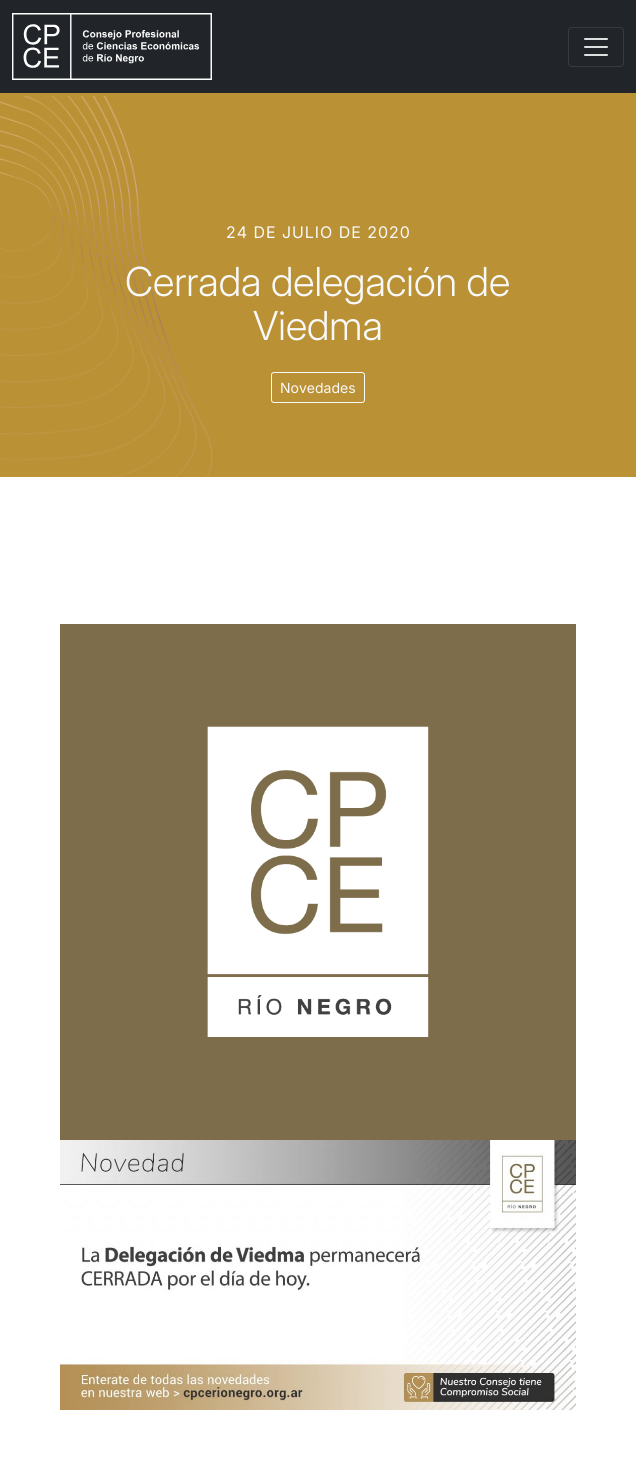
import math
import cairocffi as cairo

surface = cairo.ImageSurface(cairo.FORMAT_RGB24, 636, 1469)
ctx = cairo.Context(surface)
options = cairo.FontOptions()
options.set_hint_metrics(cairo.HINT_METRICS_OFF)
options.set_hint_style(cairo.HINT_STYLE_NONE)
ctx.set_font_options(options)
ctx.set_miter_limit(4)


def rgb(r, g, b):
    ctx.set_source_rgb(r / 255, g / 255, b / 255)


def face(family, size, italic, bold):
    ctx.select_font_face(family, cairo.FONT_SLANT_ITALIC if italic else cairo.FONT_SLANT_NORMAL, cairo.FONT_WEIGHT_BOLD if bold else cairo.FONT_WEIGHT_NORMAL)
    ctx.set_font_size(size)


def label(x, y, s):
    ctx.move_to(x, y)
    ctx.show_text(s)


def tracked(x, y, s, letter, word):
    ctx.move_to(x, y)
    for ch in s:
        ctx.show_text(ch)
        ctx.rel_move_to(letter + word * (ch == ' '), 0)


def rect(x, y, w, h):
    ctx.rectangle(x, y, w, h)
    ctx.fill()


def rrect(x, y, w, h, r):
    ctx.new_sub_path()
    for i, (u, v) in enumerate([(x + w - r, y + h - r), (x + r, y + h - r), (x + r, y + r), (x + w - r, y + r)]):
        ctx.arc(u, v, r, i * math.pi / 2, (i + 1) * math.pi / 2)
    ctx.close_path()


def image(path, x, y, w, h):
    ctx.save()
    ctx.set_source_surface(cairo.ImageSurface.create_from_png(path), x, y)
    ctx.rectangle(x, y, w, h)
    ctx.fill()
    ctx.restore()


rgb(255, 255, 255)
ctx.paint()
rgb(33, 37, 41)
rect(0, 0, 636, 93)
image('image0.png', 12, 13, 200, 67)
rrect(568.5, 27.5, 55, 39, 3.5)
rgb(55, 59, 62)
ctx.set_line_width(1)
ctx.stroke()
image('image1.png', 584, 38, 24, 18)
rgb(187, 145, 53)
rect(0, 93, 636, 384)
image('image2.png', 0, 96, 213, 381)
face('Inter', 16, 0, 0)
rgb(248, 249, 250)
tracked(226, 238, '24 DE JULIO DE 2020', 1, 0)
face('Inter Light', 40, 0, 0)
label(125, 296, 'Cerrada delegación de')
label(253, 340, 'Viedma')
rrect(271.5, 372.5, 93, 30, 2.5)
ctx.stroke()
face('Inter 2', 14, 0, 0)
label(280, 393, 'Novedades')
image('image3.png', 60, 624, 516, 516)
image('image4.png', 60, 1140, 516, 270)
surface.write_to_png('render.png')
